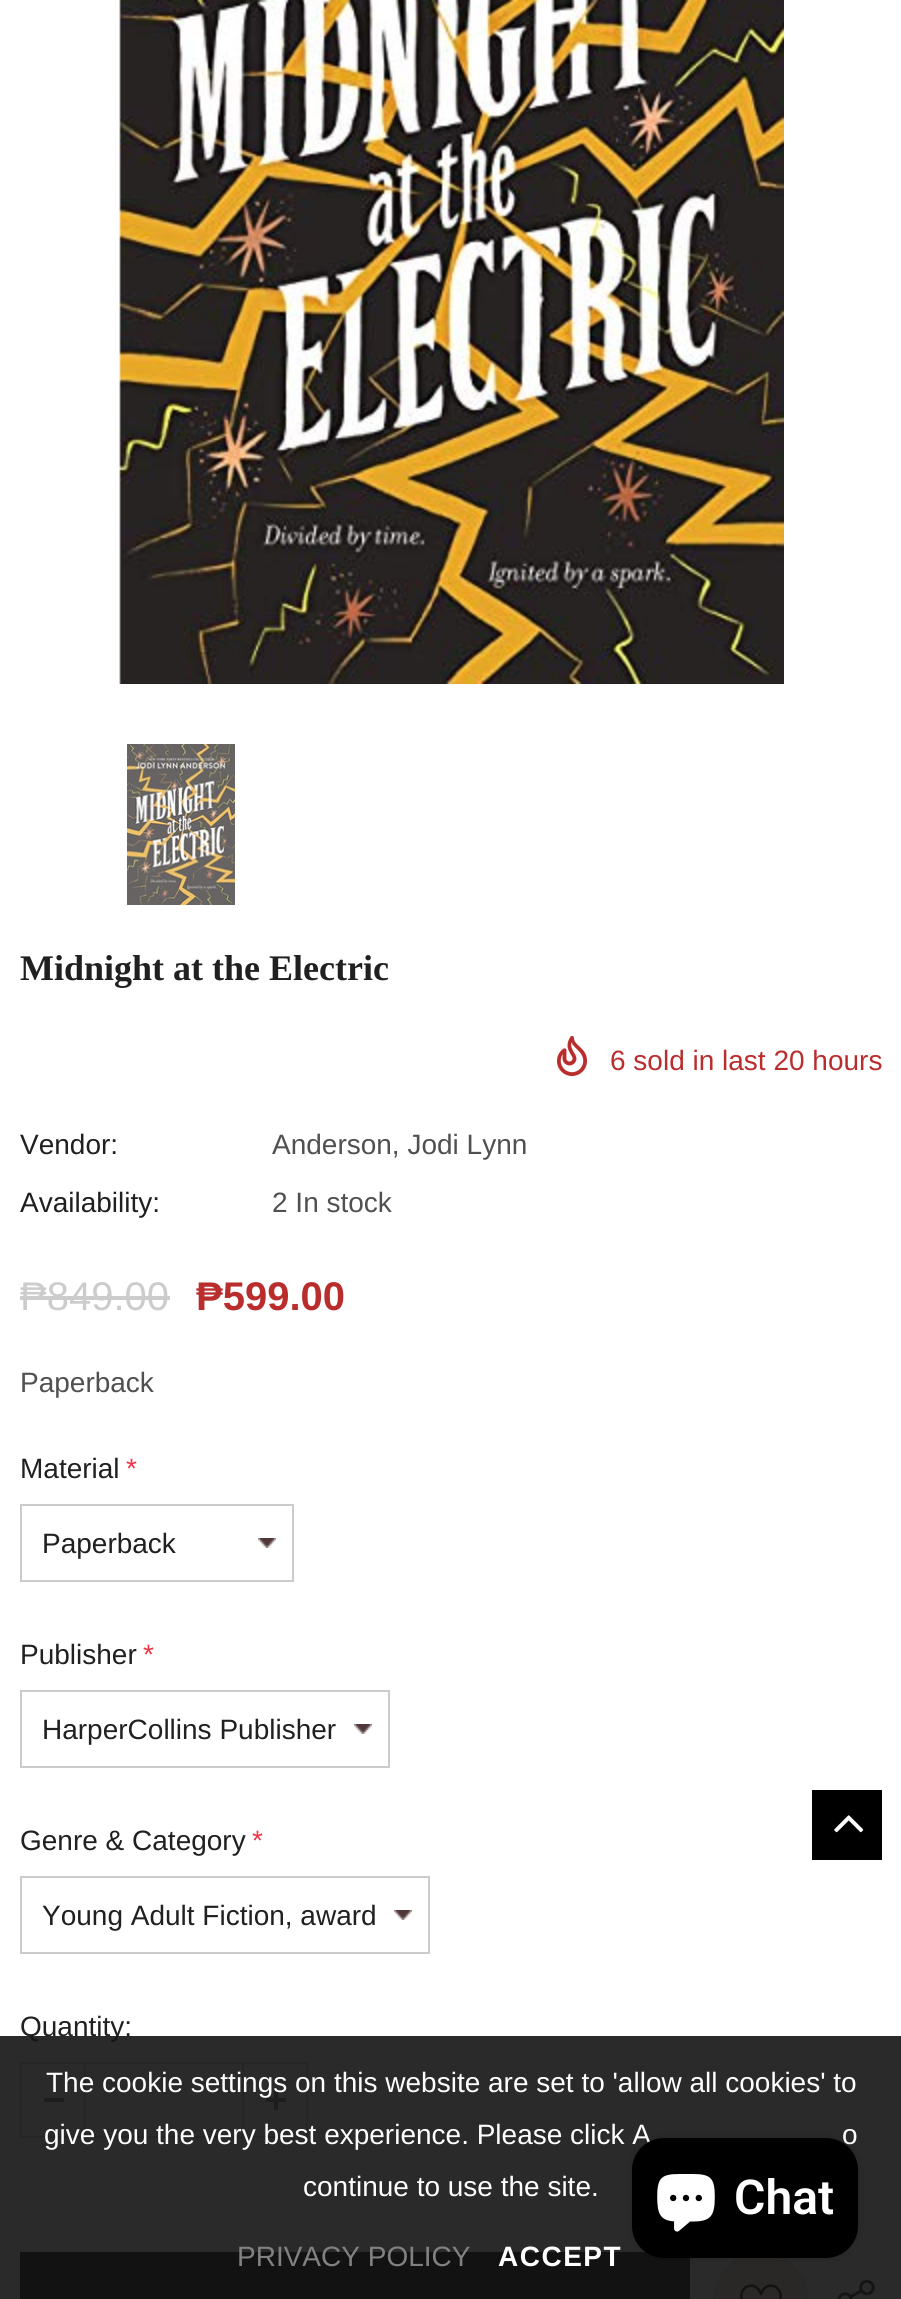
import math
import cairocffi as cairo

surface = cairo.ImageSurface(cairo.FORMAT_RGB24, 901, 2299)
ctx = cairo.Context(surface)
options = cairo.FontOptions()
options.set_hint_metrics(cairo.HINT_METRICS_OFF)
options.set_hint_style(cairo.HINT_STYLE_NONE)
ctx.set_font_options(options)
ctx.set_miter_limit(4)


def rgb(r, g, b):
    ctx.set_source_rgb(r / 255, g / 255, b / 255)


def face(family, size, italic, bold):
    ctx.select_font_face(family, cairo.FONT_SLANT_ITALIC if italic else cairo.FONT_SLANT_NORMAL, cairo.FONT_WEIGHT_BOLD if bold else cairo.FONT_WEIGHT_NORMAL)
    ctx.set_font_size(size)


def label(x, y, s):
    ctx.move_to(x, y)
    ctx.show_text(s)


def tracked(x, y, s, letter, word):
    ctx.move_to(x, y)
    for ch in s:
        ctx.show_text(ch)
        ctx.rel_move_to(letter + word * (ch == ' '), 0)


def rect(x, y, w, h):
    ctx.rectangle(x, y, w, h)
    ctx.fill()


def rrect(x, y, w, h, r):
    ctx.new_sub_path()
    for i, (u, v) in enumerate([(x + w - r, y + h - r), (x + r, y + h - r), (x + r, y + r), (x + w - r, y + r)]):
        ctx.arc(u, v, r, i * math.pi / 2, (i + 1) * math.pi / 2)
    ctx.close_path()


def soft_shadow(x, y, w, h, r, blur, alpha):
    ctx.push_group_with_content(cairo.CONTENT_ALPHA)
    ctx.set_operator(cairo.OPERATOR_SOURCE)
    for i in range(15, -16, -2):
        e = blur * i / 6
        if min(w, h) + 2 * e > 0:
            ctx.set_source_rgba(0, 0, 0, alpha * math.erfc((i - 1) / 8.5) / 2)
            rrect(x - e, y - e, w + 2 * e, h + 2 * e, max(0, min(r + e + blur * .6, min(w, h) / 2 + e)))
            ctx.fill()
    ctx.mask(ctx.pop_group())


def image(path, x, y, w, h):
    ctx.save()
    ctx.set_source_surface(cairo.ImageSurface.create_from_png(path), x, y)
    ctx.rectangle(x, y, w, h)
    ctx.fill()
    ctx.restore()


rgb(255, 255, 255)
ctx.paint()
image('image0.png', 119, 0, 665, 684)
image('image1.png', 127, 744, 108, 161)
face('Liberation Serif', 36, 0, 1)
rgb(32, 32, 32)
label(20, 980, 'Midnight at the Electric')
image('image2.png', 556, 1036, 32, 40)
face('Liberation Sans', 28, 0, 0)
rgb(186, 45, 45)
label(610, 1070, '6 sold in last 20 hours')
rgb(32, 32, 32)
label(20, 1154, 'Vendor:')
rgb(80, 80, 80)
label(272, 1154, 'Anderson, Jodi Lynn')
rgb(32, 32, 32)
label(20, 1212, 'Availability:')
rgb(80, 80, 80)
label(272, 1212, '2 In stock')
face('Liberation Sans', 40, 0, 0)
rgb(204, 204, 204)
label(20, 1310, '₱849.00')
rect(20, 1296, 150, 4)
face('Liberation Sans', 40, 0, 1)
rgb(186, 45, 45)
label(196, 1310, '₱599.00')
face('Liberation Sans', 28, 0, 0)
rgb(80, 80, 80)
label(20, 1392, 'Paperback')
rgb(32, 32, 32)
label(20, 1478, 'Material')
rgb(242, 52, 70)
label(126, 1478, '*')
image('image3.png', 258, 1538, 18, 10)
ctx.rectangle(21, 1505, 272, 76)
rgb(203, 203, 203)
ctx.stroke()
rgb(32, 32, 32)
label(42, 1553, 'Paperback')
label(20, 1664, 'Publisher')
rgb(242, 52, 70)
label(143, 1664, '*')
image('image3.png', 354, 1724, 18, 10)
ctx.rectangle(21, 1691, 368, 76)
rgb(203, 203, 203)
ctx.stroke()
rgb(32, 32, 32)
label(42, 1739, 'HarperCollins Publisher')
label(20, 1850, 'Genre & Category')
rgb(242, 52, 70)
label(252, 1850, '*')
image('image3.png', 394, 1910, 18, 10)
ctx.rectangle(21, 1877, 408, 76)
rgb(203, 203, 203)
ctx.stroke()
rgb(32, 32, 32)
label(42, 1925, 'Young Adult Fiction, award')
label(20, 2036, 'Quantity:')
ctx.rectangle(21, 2063, 286, 74)
rgb(203, 203, 203)
ctx.stroke()
rect(84, 2064, 2, 72)
rgb(123, 123, 123)
rect(44, 2098, 20, 4)
rgb(203, 203, 203)
rect(242, 2064, 2, 72)
rgb(123, 123, 123)
rect(266, 2098, 20, 4)
rect(274, 2090, 4, 20)
rgb(15, 15, 15)
rect(20, 2252, 670, 47)
rgb(255, 229, 229)
ctx.arc(761, 2299, 46, 0, 2 * math.pi)
ctx.fill_preserve()
rgb(225, 225, 225)
ctx.stroke()
image('image4.png', 740, 2284, 42, 15)
image('image5.png', 837, 2280, 38, 19)
rgb(0, 0, 0)
rect(812, 1790, 70, 70)
image('image6.png', 834, 1815, 30, 18)
ctx.set_source_rgba(0.078, 0.078, 0.078, 0.9)
rect(0, 2036, 901, 263)
rgb(255, 255, 255)
label(46, 2092, 'The cookie settings on this website are set to \'allow all cookies\' to')
label(44, 2144, 'give you the very best experience. Please click A')
label(842, 2144, 'o')
label(303, 2196, 'continue to use the site.')
rgb(129, 129, 129)
label(237, 2266, 'PRIVACY POLICY')
face('Liberation Sans', 28, 0, 1)
rgb(255, 255, 255)
tracked(498, 2266, 'ACCEPT', 1.5, 0)
rgb(0, 0, 0)
soft_shadow(632, 2138, 226, 120, 32, 5, 0.15)
rgb(0, 0, 0)
rrect(632, 2138, 226, 120, 32)
ctx.fill()
image('image7.png', 657, 2174, 58, 58)
face('Roboto SemiBold', 48, 0, 0)
rgb(255, 255, 255)
label(734, 2214, 'Chat')
surface.write_to_png('render.png')
